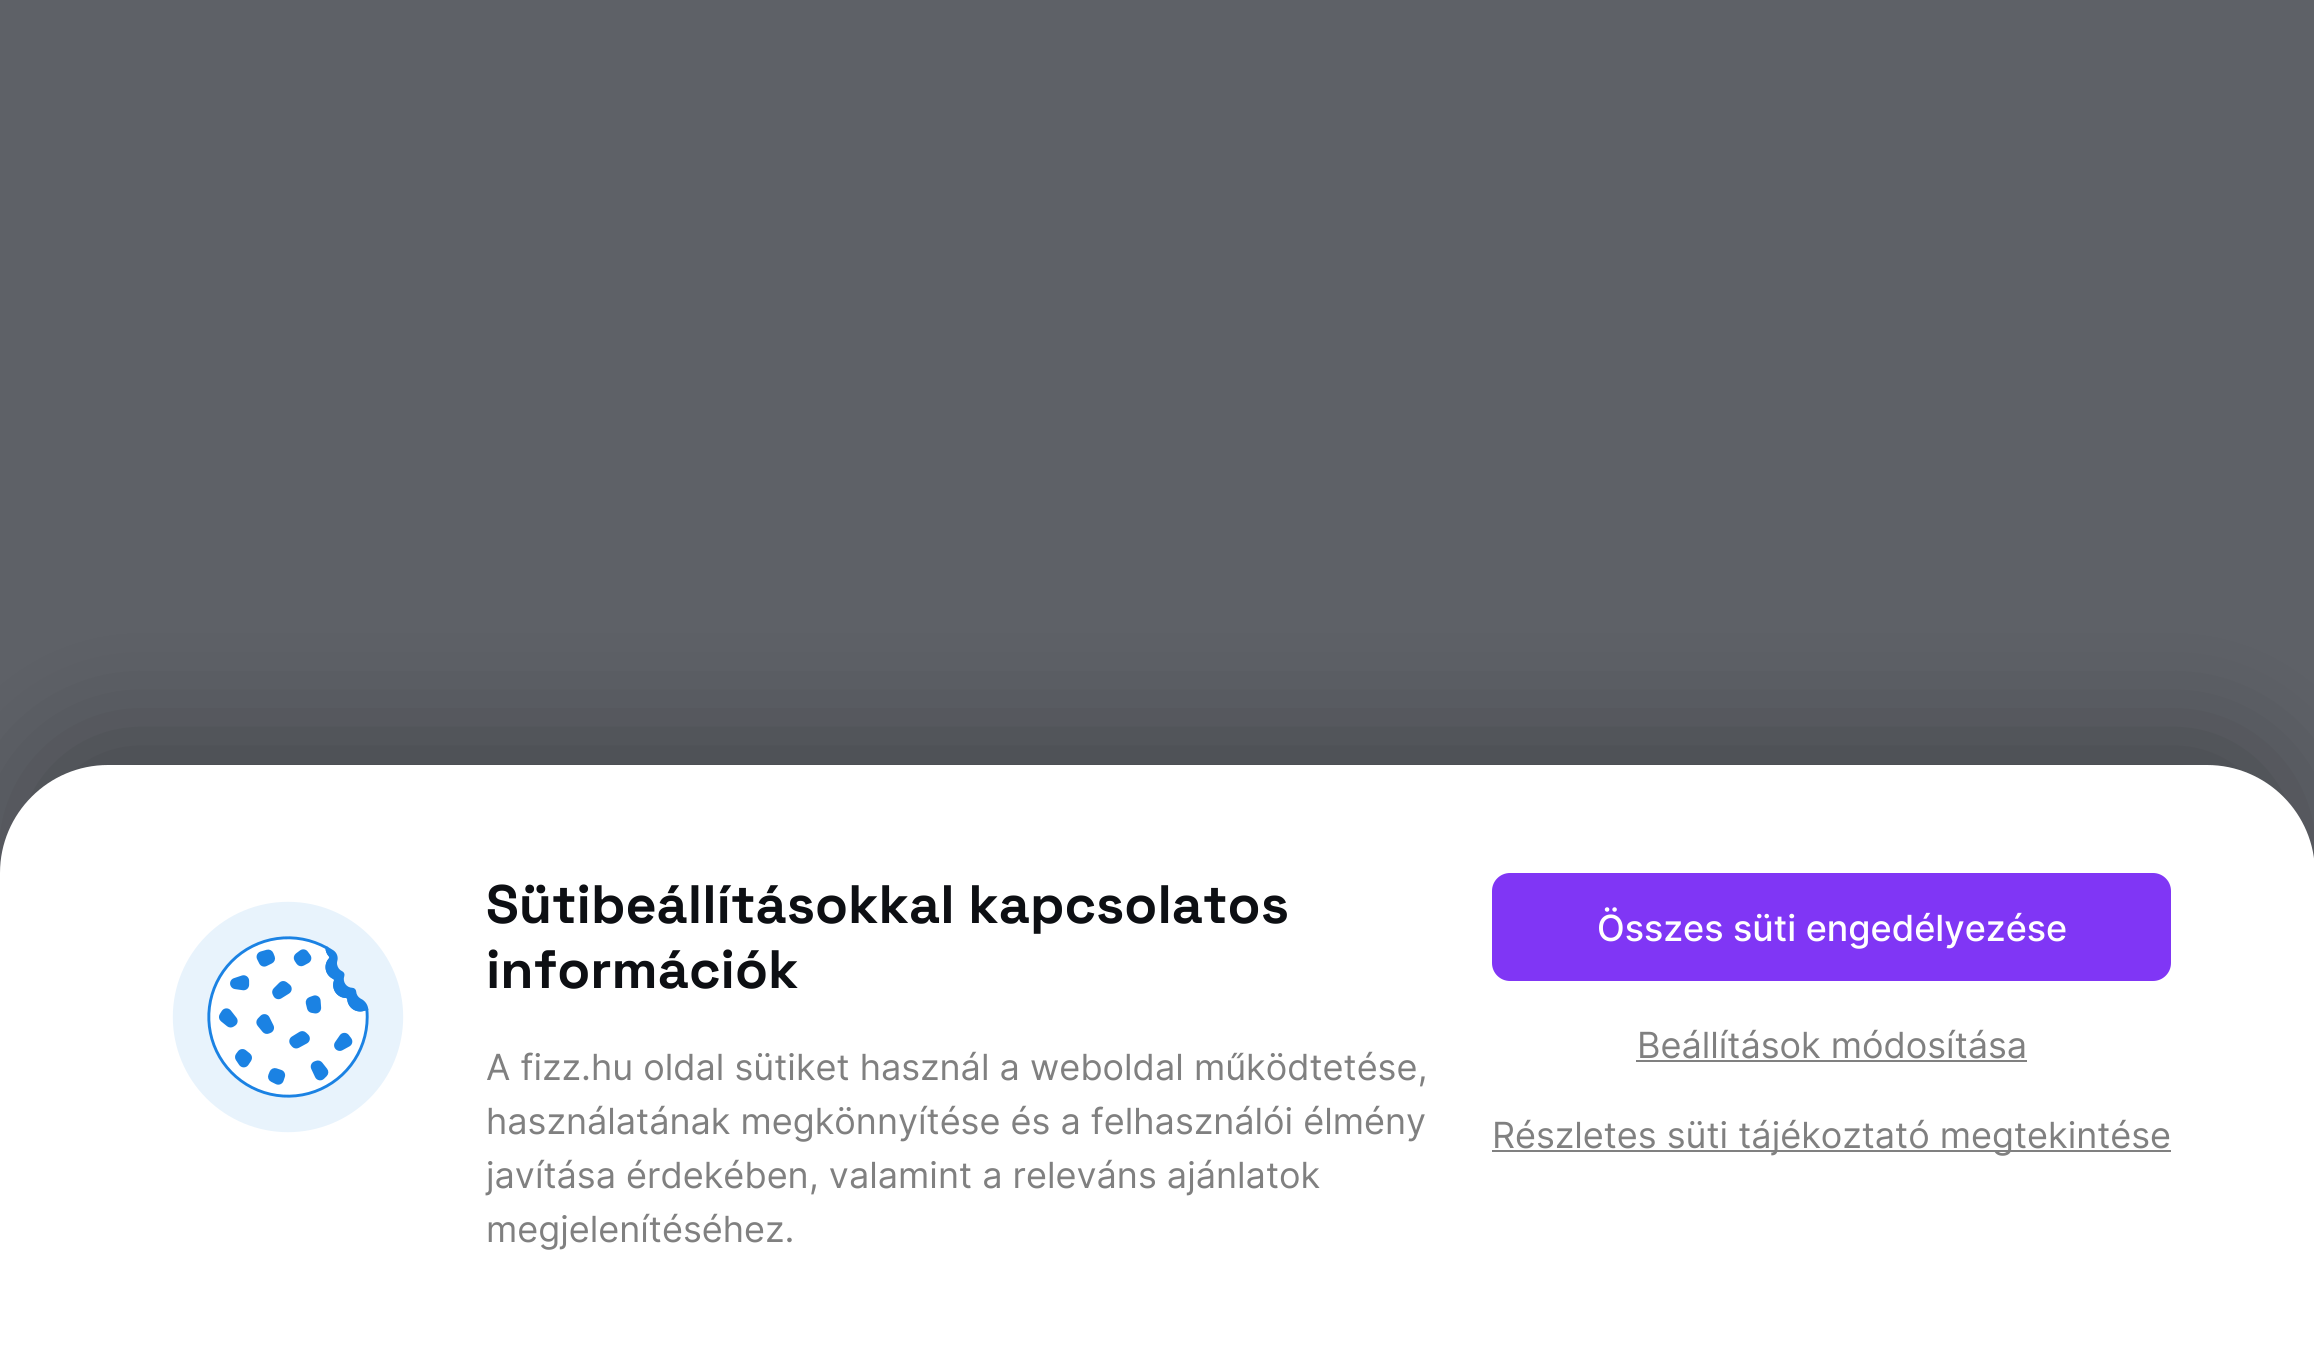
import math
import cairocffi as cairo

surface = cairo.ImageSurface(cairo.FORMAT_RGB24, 2314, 1362)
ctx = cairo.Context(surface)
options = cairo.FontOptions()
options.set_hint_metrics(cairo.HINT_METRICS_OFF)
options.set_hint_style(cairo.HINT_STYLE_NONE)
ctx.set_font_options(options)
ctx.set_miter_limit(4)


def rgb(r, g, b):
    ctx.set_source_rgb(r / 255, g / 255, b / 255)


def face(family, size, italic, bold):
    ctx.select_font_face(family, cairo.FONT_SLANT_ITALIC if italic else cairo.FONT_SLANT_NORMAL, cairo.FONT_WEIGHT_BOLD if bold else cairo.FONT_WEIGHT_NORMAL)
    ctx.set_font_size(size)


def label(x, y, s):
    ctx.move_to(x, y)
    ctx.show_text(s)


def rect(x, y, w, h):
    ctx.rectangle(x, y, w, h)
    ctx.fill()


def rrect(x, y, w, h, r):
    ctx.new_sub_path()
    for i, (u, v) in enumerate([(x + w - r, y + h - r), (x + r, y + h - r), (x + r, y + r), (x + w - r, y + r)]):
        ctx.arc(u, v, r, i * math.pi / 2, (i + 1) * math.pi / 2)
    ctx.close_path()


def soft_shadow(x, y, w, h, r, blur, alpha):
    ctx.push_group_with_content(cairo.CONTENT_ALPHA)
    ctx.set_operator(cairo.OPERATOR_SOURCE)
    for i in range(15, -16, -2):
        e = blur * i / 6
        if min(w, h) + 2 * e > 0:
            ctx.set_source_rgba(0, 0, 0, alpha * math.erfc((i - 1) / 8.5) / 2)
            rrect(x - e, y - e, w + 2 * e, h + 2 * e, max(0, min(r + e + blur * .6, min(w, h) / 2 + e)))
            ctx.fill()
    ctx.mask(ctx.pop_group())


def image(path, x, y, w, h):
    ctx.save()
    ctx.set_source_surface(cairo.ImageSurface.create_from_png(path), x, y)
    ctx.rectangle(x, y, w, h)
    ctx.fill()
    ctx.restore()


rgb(94, 97, 103)
ctx.paint()
rgb(0, 0, 0)
soft_shadow(27, 736, 2261, 544, 81, 56, 0.25)
rgb(255, 255, 255)
ctx.new_path()
ctx.move_to(108, 765)
ctx.line_to(2207, 765)
ctx.curve_to(2266.5, 765, 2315, 813.5, 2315, 873)
ctx.line_to(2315, 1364)
ctx.line_to(0, 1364)
ctx.line_to(0, 873)
ctx.curve_to(0, 813.5, 48.5, 765, 108, 765)
ctx.close_path()
ctx.fill()
image('image0.png', 172, 901, 232, 232)
face('Space Grotesk', 54, 0, 1)
rgb(13, 15, 19)
label(486, 923, 'Sütibeállításokkal kapcsolatos')
label(486, 988, 'információk')
face('Inter', 36, 0, 0)
rgb(128, 128, 128)
label(486, 1080, 'A fizz.hu oldal sütiket használ a weboldal működtetése,')
label(486, 1134, 'használatának megkönnyítése és a felhasználói élmény')
label(486, 1188, 'javítása érdekében, valamint a releváns ajánlatok')
label(486, 1242, 'megjelenítéséhez.')
rgb(128, 54, 245)
rrect(1492, 873, 679, 108, 18)
ctx.fill()
face('Inter Medium', 36, 0, 0)
rgb(255, 255, 255)
label(1597, 941, 'Összes süti engedélyezése')
face('Inter', 36, 0, 0)
rgb(128, 128, 128)
label(1637, 1058, 'Beállítások módosítása')
rect(1636, 1060, 391, 2)
rect(1492, 1150, 679, 2)
label(1492, 1148, 'Részletes süti tájékoztató megtekintése')
surface.write_to_png('render.png')
